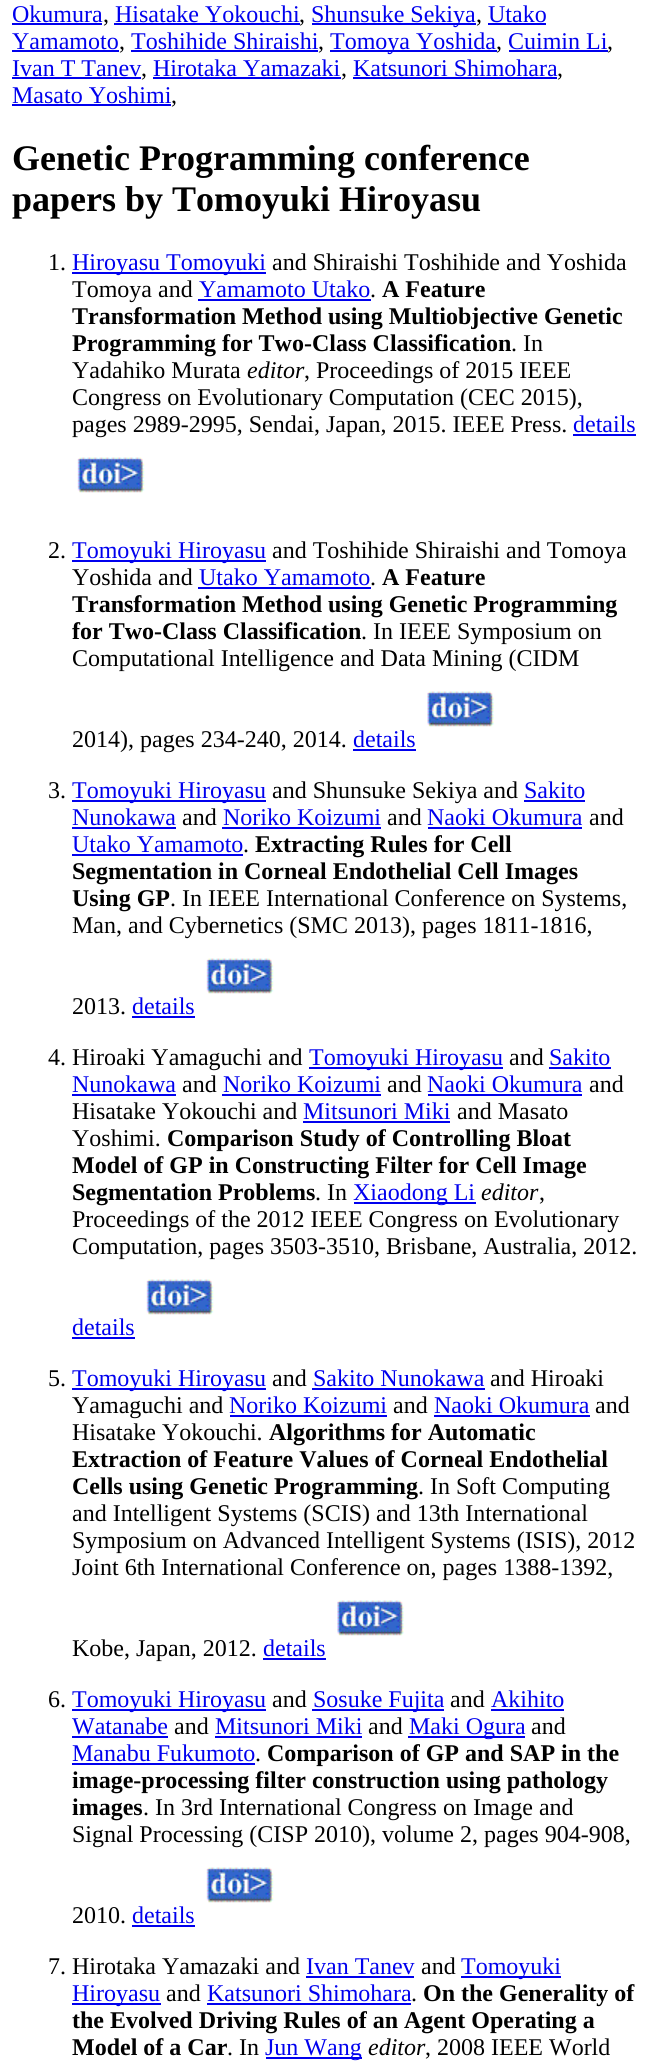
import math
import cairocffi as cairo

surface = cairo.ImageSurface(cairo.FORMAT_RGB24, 649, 2062)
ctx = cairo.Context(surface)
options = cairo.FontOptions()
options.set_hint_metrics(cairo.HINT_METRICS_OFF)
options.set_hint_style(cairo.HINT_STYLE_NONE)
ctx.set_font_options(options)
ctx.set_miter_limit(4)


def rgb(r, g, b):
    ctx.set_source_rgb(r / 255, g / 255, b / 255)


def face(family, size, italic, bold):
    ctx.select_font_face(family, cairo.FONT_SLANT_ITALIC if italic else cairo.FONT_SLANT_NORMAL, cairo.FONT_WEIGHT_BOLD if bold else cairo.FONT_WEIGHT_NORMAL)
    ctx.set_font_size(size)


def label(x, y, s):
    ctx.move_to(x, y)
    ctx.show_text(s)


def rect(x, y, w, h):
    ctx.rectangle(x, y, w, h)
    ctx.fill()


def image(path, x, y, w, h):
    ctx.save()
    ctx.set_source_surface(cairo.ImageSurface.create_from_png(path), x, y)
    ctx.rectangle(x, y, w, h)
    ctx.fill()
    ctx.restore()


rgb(255, 255, 255)
ctx.paint()
face('Liberation Serif', 24, 0, 0)
rgb(0, 0, 238)
label(12, 22, 'Okumura')
rect(12, 23, 90, 2)
rgb(0, 0, 0)
label(103, 22, ',')
rgb(0, 0, 238)
label(115, 22, 'Hisatake Yokouchi')
rect(114, 23, 186, 2)
rgb(0, 0, 0)
label(299, 22, ',')
rgb(0, 0, 238)
rect(312, 23, 164, 2)
label(311, 22, 'Shunsuke Sekiya')
rgb(0, 0, 0)
label(476, 22, ',')
rgb(0, 0, 238)
label(488, 22, 'Utako')
rect(488, 23, 58, 2)
label(12, 49, 'Yamamoto')
rect(12, 50, 107, 2)
rgb(0, 0, 0)
label(119, 49, ',')
rgb(0, 0, 238)
label(131, 49, 'Toshihide Shiraishi')
rect(131, 50, 187, 2)
rgb(0, 0, 0)
label(318, 49, ',')
rgb(0, 0, 238)
rect(330, 50, 167, 2)
label(330, 49, 'Tomoya Yoshida')
rgb(0, 0, 0)
label(496, 49, ',')
rgb(0, 0, 238)
label(508, 49, 'Cuimin Li')
rect(509, 50, 99, 2)
rgb(0, 0, 0)
label(607, 49, ',')
rgb(0, 0, 238)
label(12, 76, 'Ivan T Tanev')
rect(12, 77, 129, 2)
rgb(0, 0, 0)
label(141, 76, ',')
rgb(0, 0, 238)
label(153, 76, 'Hirotaka Yamazaki')
rect(153, 77, 188, 2)
rgb(0, 0, 0)
label(341, 76, ',')
rgb(0, 0, 238)
label(353, 76, 'Katsunori Shimohara')
rect(353, 77, 204, 2)
rgb(0, 0, 0)
label(557, 76, ',')
rgb(0, 0, 238)
label(12, 103, 'Masato Yoshimi')
rect(12, 104, 159, 2)
rgb(0, 0, 0)
label(171, 103, ',')
face('Liberation Serif', 36, 0, 1)
label(12, 170, 'Genetic Programming conference')
label(12, 211, 'papers by Tomoyuki Hiroyasu')
face('Liberation Serif', 24, 0, 0)
label(48, 270, '1.')
rgb(0, 0, 238)
rect(72, 272, 194, 2)
label(72, 270, 'Hiroyasu Tomoyuki')
rgb(0, 0, 0)
label(272, 270, 'and Shiraishi Toshihide and Yoshida')
label(72, 297, 'Tomoya and')
rgb(0, 0, 238)
label(199, 297, 'Yamamoto Utako')
rect(198, 299, 173, 2)
rgb(0, 0, 0)
label(370, 297, '.')
face('Liberation Serif', 24, 0, 1)
label(382, 297, 'A Feature')
label(72, 324, 'Transformation Method using Multiobjective Genetic')
label(72, 351, 'Programming for Two-Class Classification')
face('Liberation Serif', 24, 0, 0)
label(511, 351, '. In')
label(72, 378, 'Yadahiko Murata')
face('Liberation Serif', 24, 1, 0)
label(247, 378, 'editor')
face('Liberation Serif', 24, 0, 0)
label(304, 378, ', Proceedings of 2015 IEEE')
label(72, 405, 'Congress on Evolutionary Computation (CEC 2015),')
label(72, 432, 'pages 2989-2995, Sendai, Japan, 2015. IEEE Press.')
rgb(0, 0, 238)
label(573, 432, 'details')
rect(573, 434, 63, 2)
image('image0.png', 77, 457, 68, 36)
rgb(0, 0, 0)
label(48, 558, '2.')
rgb(0, 0, 238)
rect(72, 560, 194, 2)
label(72, 558, 'Tomoyuki Hiroyasu')
rgb(0, 0, 0)
label(272, 558, 'and Toshihide Shiraishi and Tomoya')
label(72, 585, 'Yoshida and')
rgb(0, 0, 238)
label(199, 585, 'Utako Yamamoto')
rect(198, 587, 173, 2)
rgb(0, 0, 0)
label(370, 585, '.')
face('Liberation Serif', 24, 0, 1)
label(382, 585, 'A Feature')
label(72, 612, 'Transformation Method using Genetic Programming')
label(72, 639, 'for Two-Class Classification')
face('Liberation Serif', 24, 0, 0)
label(361, 639, '. In IEEE Symposium on')
label(72, 666, 'Computational Intelligence and Data Mining (CIDM')
image('image1.png', 427, 691, 67, 36)
label(72, 747, '2014), pages 234-240, 2014.')
rgb(0, 0, 238)
label(353, 747, 'details')
rect(353, 749, 63, 2)
rgb(0, 0, 0)
label(48, 798, '3.')
rgb(0, 0, 238)
rect(72, 800, 194, 2)
label(72, 798, 'Tomoyuki Hiroyasu')
rgb(0, 0, 0)
label(272, 798, 'and Shunsuke Sekiya and')
rgb(0, 0, 238)
label(524, 798, 'Sakito')
rect(524, 800, 61, 2)
label(72, 825, 'Nunokawa')
rect(72, 827, 104, 2)
rgb(0, 0, 0)
label(182, 825, 'and')
rgb(0, 0, 238)
label(223, 825, 'Noriko Koizumi')
rect(222, 827, 159, 2)
rgb(0, 0, 0)
label(387, 825, 'and')
rgb(0, 0, 238)
label(427, 825, 'Naoki Okumura')
rect(428, 827, 154, 2)
rgb(0, 0, 0)
label(589, 825, 'and')
rgb(0, 0, 238)
label(72, 852, 'Utako Yamamoto')
rect(72, 854, 171, 2)
rgb(0, 0, 0)
label(243, 852, '.')
face('Liberation Serif', 24, 0, 1)
label(255, 852, 'Extracting Rules for Cell')
label(72, 879, 'Segmentation in Corneal Endothelial Cell Images')
label(72, 906, 'Using GP')
face('Liberation Serif', 24, 0, 0)
label(170, 906, '. In IEEE International Conference on Systems,')
label(72, 933, 'Man, and Cybernetics (SMC 2013), pages 1811-1816,')
image('image0.png', 206, 958, 68, 36)
label(72, 1014, '2013.')
rgb(0, 0, 238)
label(132, 1014, 'details')
rect(132, 1016, 63, 2)
rgb(0, 0, 0)
label(48, 1065, '4. Hiroaki Yamaguchi and')
rgb(0, 0, 238)
rect(309, 1067, 194, 2)
label(309, 1065, 'Tomoyuki Hiroyasu')
rgb(0, 0, 0)
label(509, 1065, 'and')
rgb(0, 0, 238)
label(549, 1065, 'Sakito')
rect(549, 1067, 62, 2)
label(72, 1092, 'Nunokawa')
rect(72, 1094, 104, 2)
rgb(0, 0, 0)
label(182, 1092, 'and')
rgb(0, 0, 238)
label(223, 1092, 'Noriko Koizumi')
rect(222, 1094, 159, 2)
rgb(0, 0, 0)
label(387, 1092, 'and')
rgb(0, 0, 238)
label(427, 1092, 'Naoki Okumura')
rect(428, 1094, 154, 2)
rgb(0, 0, 0)
label(589, 1092, 'and')
label(72, 1119, 'Hisatake Yokouchi and')
rgb(0, 0, 238)
label(303, 1119, 'Mitsunori Miki')
rect(303, 1121, 147, 2)
rgb(0, 0, 0)
label(457, 1119, 'and Masato')
label(72, 1146, 'Yoshimi.')
face('Liberation Serif', 24, 0, 1)
label(167, 1146, 'Comparison Study of Controlling Bloat')
label(72, 1173, 'Model of GP in Constructing Filter for Cell Image')
label(72, 1200, 'Segmentation Problems')
face('Liberation Serif', 24, 0, 0)
label(315, 1200, '. In')
rgb(0, 0, 238)
rect(354, 1202, 122, 2)
label(353, 1200, 'Xiaodong Li')
face('Liberation Serif', 24, 1, 0)
rgb(0, 0, 0)
label(481, 1200, 'editor')
face('Liberation Serif', 24, 0, 0)
label(539, 1200, ',')
label(72, 1227, 'Proceedings of the 2012 IEEE Congress on Evolutionary')
label(72, 1254, 'Computation, pages 3503-3510, Brisbane, Australia, 2012.')
image('image0.png', 146, 1279, 68, 36)
rgb(0, 0, 238)
label(72, 1335, 'details')
rect(72, 1337, 63, 2)
rgb(0, 0, 0)
label(48, 1386, '5.')
rgb(0, 0, 238)
rect(72, 1388, 194, 2)
label(72, 1386, 'Tomoyuki Hiroyasu')
rgb(0, 0, 0)
label(272, 1386, 'and')
rgb(0, 0, 238)
label(313, 1386, 'Sakito Nunokawa')
rect(312, 1388, 173, 2)
rgb(0, 0, 0)
label(490, 1386, 'and Hiroaki')
label(72, 1413, 'Yamaguchi and')
rgb(0, 0, 238)
label(229, 1413, 'Noriko Koizumi')
rect(230, 1415, 157, 2)
rgb(0, 0, 0)
label(393, 1413, 'and')
rgb(0, 0, 238)
label(434, 1413, 'Naoki Okumura')
rect(434, 1415, 156, 2)
rgb(0, 0, 0)
label(595, 1413, 'and')
label(72, 1440, 'Hisatake Yokouchi.')
face('Liberation Serif', 24, 0, 1)
label(269, 1440, 'Algorithms for Automatic')
label(72, 1467, 'Extraction of Feature Values of Corneal Endothelial')
label(72, 1494, 'Cells using Genetic Programming')
face('Liberation Serif', 24, 0, 0)
label(418, 1494, '. In Soft Computing')
label(72, 1521, 'and Intelligent Systems (SCIS) and 13th International')
label(72, 1548, 'Symposium on Advanced Intelligent Systems (ISIS), 2012')
label(72, 1575, 'Joint 6th International Conference on, pages 1388-1392,')
image('image2.png', 337, 1600, 67, 36)
label(72, 1656, 'Kobe, Japan, 2012.')
rgb(0, 0, 238)
label(263, 1656, 'details')
rect(263, 1658, 63, 2)
rgb(0, 0, 0)
label(48, 1707, '6.')
rgb(0, 0, 238)
rect(72, 1709, 194, 2)
label(72, 1707, 'Tomoyuki Hiroyasu')
rgb(0, 0, 0)
label(272, 1707, 'and')
rgb(0, 0, 238)
rect(312, 1709, 132, 2)
label(313, 1707, 'Sosuke Fujita')
rgb(0, 0, 0)
label(450, 1707, 'and')
rgb(0, 0, 238)
label(491, 1707, 'Akihito')
rect(491, 1709, 73, 2)
label(72, 1734, 'Watanabe')
rect(72, 1736, 96, 2)
rgb(0, 0, 0)
label(174, 1734, 'and')
rgb(0, 0, 238)
label(215, 1734, 'Mitsunori Miki')
rect(215, 1736, 147, 2)
rgb(0, 0, 0)
label(368, 1734, 'and')
rgb(0, 0, 238)
rect(408, 1736, 117, 2)
label(409, 1734, 'Maki Ogura')
rgb(0, 0, 0)
label(531, 1734, 'and')
rgb(0, 0, 238)
label(72, 1761, 'Manabu Fukumoto')
rect(72, 1763, 183, 2)
rgb(0, 0, 0)
label(255, 1761, '.')
face('Liberation Serif', 24, 0, 1)
label(267, 1761, 'Comparison of GP and SAP in the')
label(72, 1788, 'image-processing filter construction using pathology')
label(72, 1815, 'images')
face('Liberation Serif', 24, 0, 0)
label(143, 1815, '. In 3rd International Congress on Image and')
label(72, 1842, 'Signal Processing (CISP 2010), volume 2, pages 904-908,')
image('image0.png', 206, 1867, 68, 36)
label(72, 1923, '2010.')
rgb(0, 0, 238)
label(132, 1923, 'details')
rect(132, 1925, 63, 2)
rgb(0, 0, 0)
label(48, 1974, '7. Hirotaka Yamazaki and')
rgb(0, 0, 238)
label(306, 1974, 'Ivan Tanev')
rect(306, 1976, 108, 2)
rgb(0, 0, 0)
label(421, 1974, 'and')
rgb(0, 0, 238)
rect(461, 1976, 100, 2)
label(461, 1974, 'Tomoyuki')
rect(72, 2003, 89, 2)
label(72, 2001, 'Hiroyasu')
rgb(0, 0, 0)
label(166, 2001, 'and')
rgb(0, 0, 238)
label(207, 2001, 'Katsunori Shimohara')
rect(207, 2003, 204, 2)
rgb(0, 0, 0)
label(411, 2001, '.')
face('Liberation Serif', 24, 0, 1)
label(423, 2001, 'On the Generality of')
label(72, 2028, 'the Evolved Driving Rules of an Agent Operating a')
label(72, 2055, 'Model of a Car')
face('Liberation Serif', 24, 0, 0)
label(227, 2055, '. In')
rgb(0, 0, 238)
rect(266, 2057, 96, 2)
label(265, 2055, 'Jun Wang')
face('Liberation Serif', 24, 1, 0)
rgb(0, 0, 0)
label(368, 2055, 'editor')
face('Liberation Serif', 24, 0, 0)
label(425, 2055, ', 2008 IEEE World')
surface.write_to_png('render.png')
